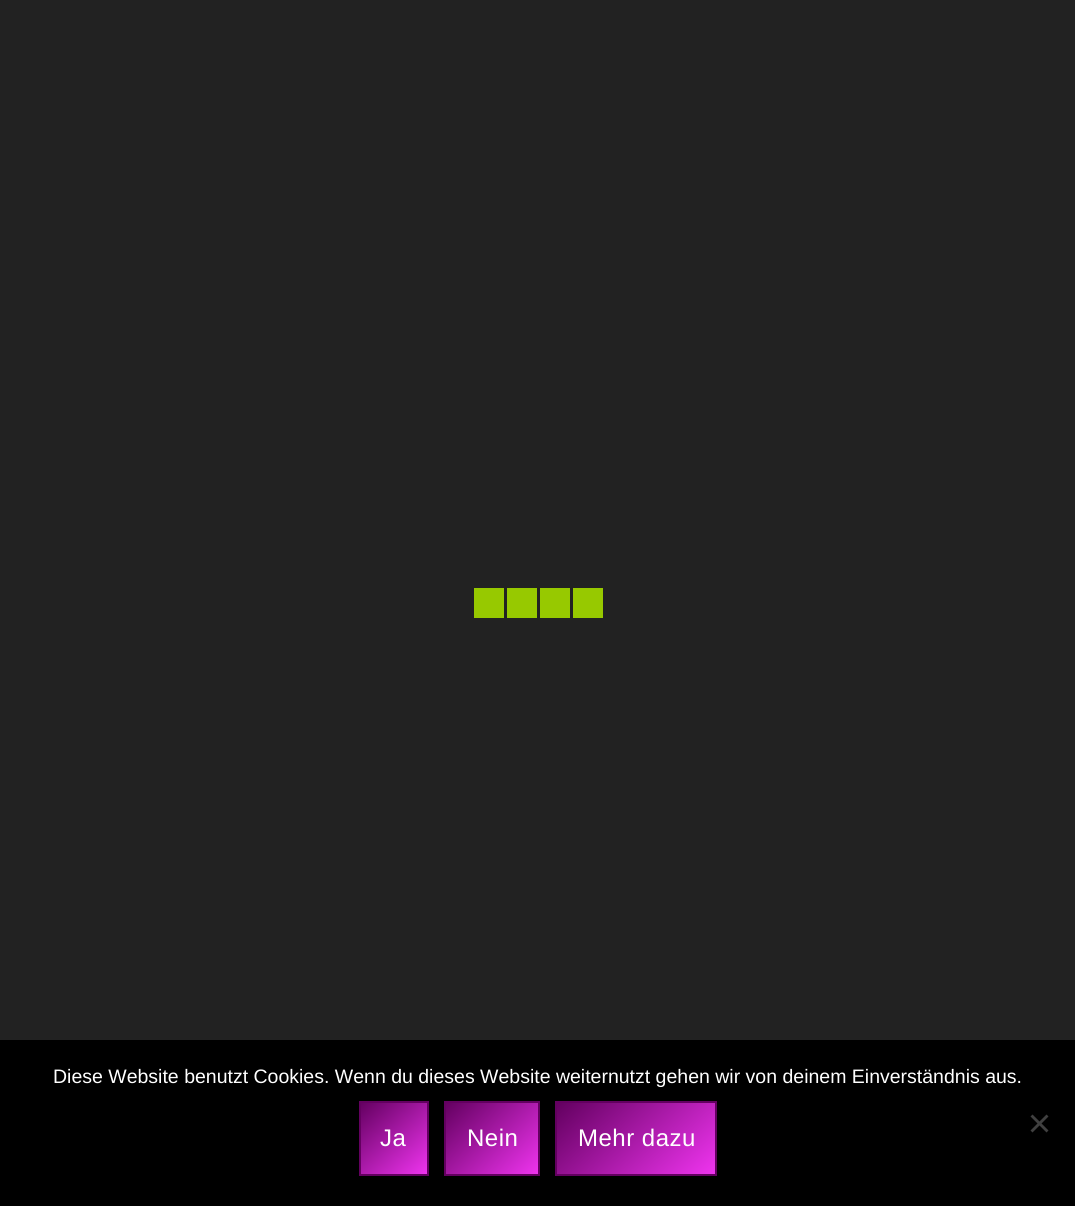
import math
import cairocffi as cairo

surface = cairo.ImageSurface(cairo.FORMAT_RGB24, 1075, 1206)
ctx = cairo.Context(surface)
options = cairo.FontOptions()
options.set_hint_metrics(cairo.HINT_METRICS_OFF)
options.set_hint_style(cairo.HINT_STYLE_NONE)
ctx.set_font_options(options)
ctx.set_miter_limit(4)


def rgb(r, g, b):
    ctx.set_source_rgb(r / 255, g / 255, b / 255)


def face(family, size, italic, bold):
    ctx.select_font_face(family, cairo.FONT_SLANT_ITALIC if italic else cairo.FONT_SLANT_NORMAL, cairo.FONT_WEIGHT_BOLD if bold else cairo.FONT_WEIGHT_NORMAL)
    ctx.set_font_size(size)


def label(x, y, s):
    ctx.move_to(x, y)
    ctx.show_text(s)


def tracked(x, y, s, letter, word):
    ctx.move_to(x, y)
    for ch in s:
        ctx.show_text(ch)
        ctx.rel_move_to(letter + word * (ch == ' '), 0)


def rect(x, y, w, h):
    ctx.rectangle(x, y, w, h)
    ctx.fill()


rgb(34, 34, 34)
ctx.paint()
rgb(151, 201, 0)
rect(474, 588, 30, 30)
rect(507, 588, 30, 30)
rect(540, 588, 30, 30)
rect(573, 588, 30, 30)
rgb(0, 0, 0)
rect(0, 1040, 1075, 166)
face('Liberation Sans', 19.5, 0, 0)
rgb(255, 255, 255)
label(53, 1083, 'Diese Website benutzt Cookies. Wenn du dieses Website weiternutzt gehen wir von deinem Einverständnis aus.')
rgb(64, 64, 64)
ctx.new_path()
ctx.move_to(1046.5, 1114.5)
ctx.line_to(1048.5, 1116.5)
ctx.line_to(1032.5, 1132.5)
ctx.line_to(1030.5, 1130.5)
ctx.close_path()
ctx.fill()
ctx.new_path()
ctx.move_to(1030.5, 1116.5)
ctx.line_to(1032.5, 1114.5)
ctx.line_to(1048.5, 1130.5)
ctx.line_to(1046.5, 1132.5)
ctx.close_path()
ctx.fill()
gradient = cairo.LinearGradient(360, 1102, 427, 1175)
gradient.add_color_stop_rgba(0, 0.388, 0, 0.376, 1)
gradient.add_color_stop_rgba(1, 0.937, 0.204, 0.937, 1)
ctx.set_source(gradient)
rect(361, 1103, 66, 71)
ctx.rectangle(360, 1102, 68, 73)
rgb(99, 0, 96)
ctx.stroke()
face('Liberation Sans', 24, 0, 0)
rgb(255, 255, 255)
tracked(380, 1146, 'Ja', 0.5, 0)
gradient = cairo.LinearGradient(452, 1096, 532, 1181)
gradient.add_color_stop_rgba(0, 0.388, 0, 0.376, 1)
gradient.add_color_stop_rgba(1, 0.937, 0.204, 0.937, 1)
ctx.set_source(gradient)
rect(446, 1103, 92, 71)
ctx.rectangle(445, 1102, 94, 73)
rgb(99, 0, 96)
ctx.stroke()
rgb(255, 255, 255)
tracked(467, 1146, 'Nein', 0.5, 0)
gradient = cairo.LinearGradient(581, 1080, 691, 1197)
gradient.add_color_stop_rgba(0, 0.388, 0, 0.376, 1)
gradient.add_color_stop_rgba(1, 0.937, 0.204, 0.937, 1)
ctx.set_source(gradient)
rect(557, 1103, 158, 71)
ctx.rectangle(556, 1102, 160, 73)
rgb(99, 0, 96)
ctx.stroke()
rgb(255, 255, 255)
tracked(578, 1146, 'Mehr dazu', 0.5, 0)
surface.write_to_png('render.png')
